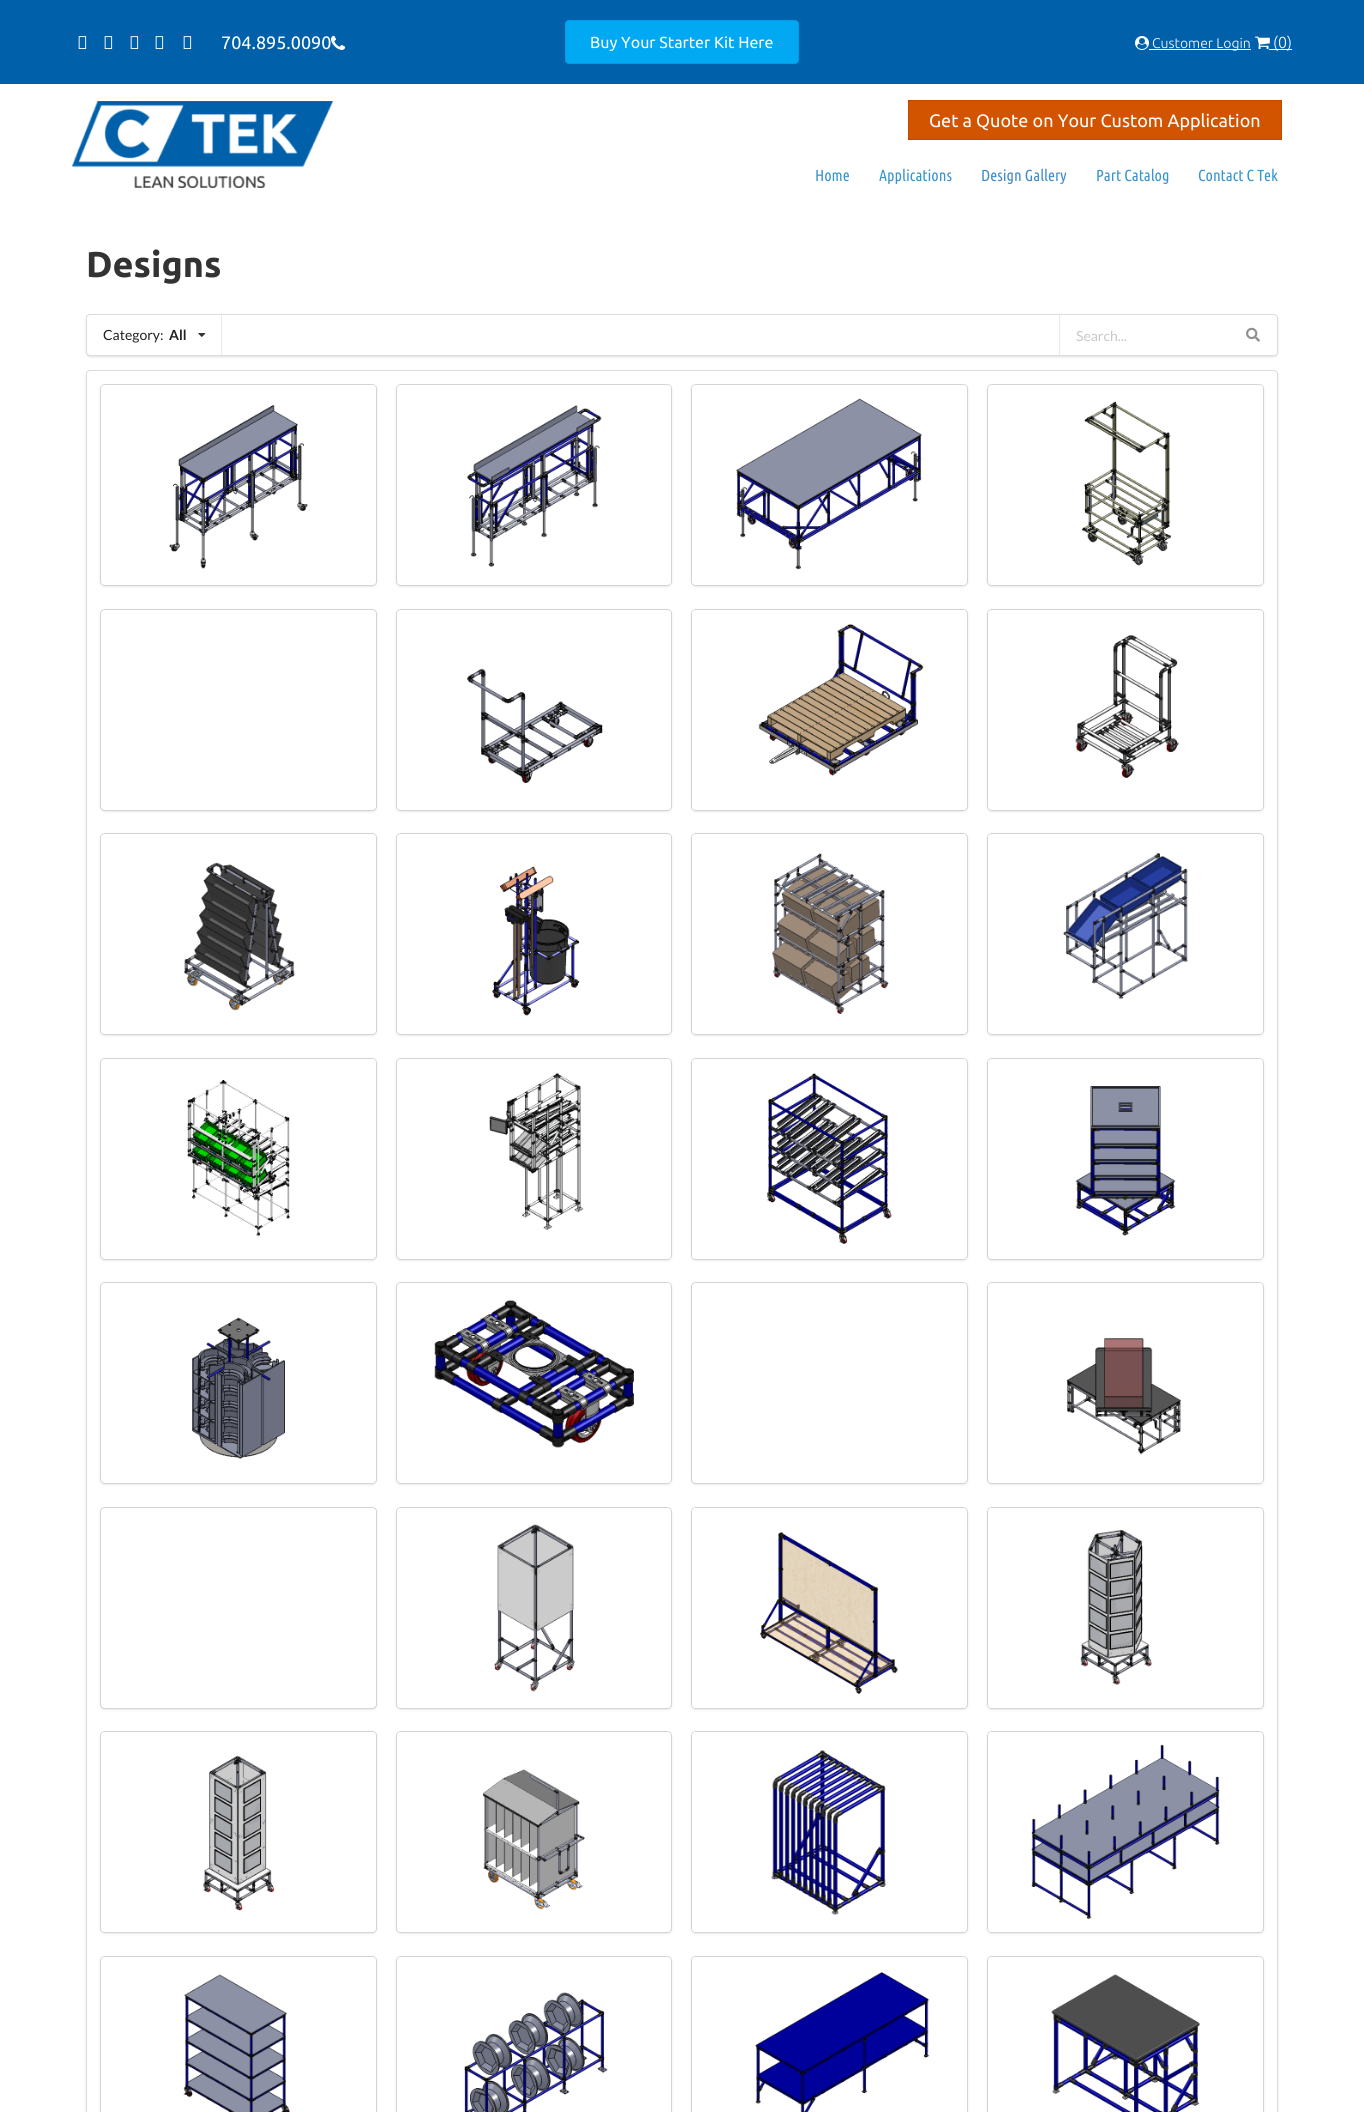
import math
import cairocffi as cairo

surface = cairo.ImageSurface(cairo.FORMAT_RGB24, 1364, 2112)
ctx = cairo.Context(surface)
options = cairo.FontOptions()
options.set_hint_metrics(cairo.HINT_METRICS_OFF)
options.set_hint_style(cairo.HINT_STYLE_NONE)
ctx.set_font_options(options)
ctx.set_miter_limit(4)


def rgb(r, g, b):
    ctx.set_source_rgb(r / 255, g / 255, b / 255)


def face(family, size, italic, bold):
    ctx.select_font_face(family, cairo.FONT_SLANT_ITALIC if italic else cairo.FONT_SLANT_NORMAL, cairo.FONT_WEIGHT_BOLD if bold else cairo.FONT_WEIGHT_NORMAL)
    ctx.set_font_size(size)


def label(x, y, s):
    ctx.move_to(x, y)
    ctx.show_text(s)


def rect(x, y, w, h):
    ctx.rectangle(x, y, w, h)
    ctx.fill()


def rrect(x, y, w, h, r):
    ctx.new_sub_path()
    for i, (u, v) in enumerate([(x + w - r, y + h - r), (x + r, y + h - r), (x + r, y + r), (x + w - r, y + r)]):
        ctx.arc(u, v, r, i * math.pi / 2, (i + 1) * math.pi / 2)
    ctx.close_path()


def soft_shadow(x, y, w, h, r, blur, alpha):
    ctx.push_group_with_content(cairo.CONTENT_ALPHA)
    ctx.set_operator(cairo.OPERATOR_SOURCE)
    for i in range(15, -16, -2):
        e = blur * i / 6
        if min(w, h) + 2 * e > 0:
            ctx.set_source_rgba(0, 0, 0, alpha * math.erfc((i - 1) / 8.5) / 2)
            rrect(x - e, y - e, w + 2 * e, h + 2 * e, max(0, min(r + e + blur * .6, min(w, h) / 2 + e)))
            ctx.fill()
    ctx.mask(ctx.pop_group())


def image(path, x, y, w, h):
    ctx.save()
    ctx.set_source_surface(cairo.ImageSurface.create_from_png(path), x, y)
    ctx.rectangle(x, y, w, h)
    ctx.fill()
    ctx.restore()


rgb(255, 255, 255)
ctx.paint()
rgb(0, 97, 170)
rect(0, 0, 1364, 84)
image('image0.png', 78, 36, 9, 13)
image('image0.png', 104, 36, 9, 13)
image('image0.png', 130, 36, 9, 13)
image('image0.png', 155, 36, 9, 13)
image('image0.png', 183, 36, 9, 13)
face('Ubuntu', 18, 0, 0)
rgb(255, 255, 255)
label(221, 49, '704.895.0090')
image('image1.png', 331, 35, 15, 15)
rgb(0, 169, 242)
rrect(565.5, 20.5, 233, 43, 3.5)
ctx.fill_preserve()
rgb(0, 157, 230)
ctx.set_line_width(1)
ctx.stroke()
face('Ubuntu', 16, 0, 0)
rgb(255, 255, 255)
label(590, 48, 'Buy Your Starter Kit Here')
image('image2.png', 1135, 36, 14, 14)
rect(1149, 49, 102, 1)
face('Ubuntu Light', 14, 0, 0)
label(1152, 48, 'Customer Login')
image('image3.png', 1255, 36, 15, 14)
rect(1269, 49, 23, 1)
face('Ubuntu Light', 16, 0, 0)
label(1273, 48, '(0)')
image('image4.png', 72, 101, 261, 87)
rgb(211, 84, 0)
ctx.rectangle(908.5, 100.5, 373, 39)
ctx.fill_preserve()
rgb(199, 72, 0)
ctx.stroke()
face('Ubuntu', 18, 0, 0)
rgb(255, 255, 255)
label(929, 127, 'Get a Quote on Your Custom Application')
face('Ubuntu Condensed', 16, 0, 0)
rgb(59, 148, 204)
label(815, 181, 'Home')
label(879, 181, 'Applications')
rgb(66, 139, 202)
label(981, 181, 'Design Gallery')
rgb(59, 148, 204)
label(1096, 181, 'Part Catalog')
label(1198, 181, 'Contact C Tek')
face('Ubuntu', 36, 0, 1)
rgb(51, 51, 51)
label(86, 277, 'Designs')
rgb(34, 36, 38)
soft_shadow(86, 315, 1192, 42, 4, 1, 0.15)
rgb(255, 255, 255)
rrect(86, 314, 1192, 42, 4)
ctx.fill()
rrect(86.5, 314.5, 1191, 41, 3.5)
ctx.set_source_rgba(0.133, 0.141, 0.149, 0.15)
ctx.stroke()
face('Lato', 14, 0, 0)
rgb(33, 33, 33)
label(103, 340, 'Category:')
face('Lato', 14, 0, 1)
label(169, 340, 'All')
image('image5.png', 198, 333, 8, 4)
rgb(233, 233, 233)
rect(221, 315, 1, 40)
rect(1059, 315, 1, 40)
face('Lato', 14, 0, 0)
rgb(199, 199, 199)
label(1076, 341, 'Search...')
image('image6.png', 1246, 327, 14, 15)
rgb(34, 36, 38)
soft_shadow(86, 371, 1192, 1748, 4, 1, 0.15)
rgb(255, 255, 255)
rrect(86.5, 370.5, 1191, 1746, 3.5)
ctx.fill_preserve()
rgb(222, 222, 222)
ctx.stroke()
rrect(100.5, 384.5, 276, 201, 4.5)
rgb(212, 212, 213)
ctx.stroke()
rgb(212, 212, 213)
soft_shadow(101, 386, 275, 200, 4, 1.5, 1)
image('image7.png', 101, 385, 275, 200)
rrect(396.5, 384.5, 275, 201, 4.5)
rgb(212, 212, 213)
ctx.stroke()
rgb(212, 212, 213)
soft_shadow(397, 386, 274, 200, 4, 1.5, 1)
image('image8.png', 397, 385, 274, 200)
rrect(691.5, 384.5, 276, 201, 4.5)
rgb(212, 212, 213)
ctx.stroke()
rgb(212, 212, 213)
soft_shadow(692, 386, 275, 200, 4, 1.5, 1)
rgb(255, 255, 255)
rrect(692, 385, 275, 200, 4)
ctx.fill()
image('image9.png', 692, 385, 274, 200)
rrect(987.5, 384.5, 276, 201, 4.5)
rgb(212, 212, 213)
ctx.stroke()
rgb(212, 212, 213)
soft_shadow(988, 386, 275, 200, 4, 1.5, 1)
image('image10.png', 988, 385, 275, 200)
rrect(100.5, 609.5, 276, 201, 4.5)
rgb(212, 212, 213)
ctx.stroke()
rgb(212, 212, 213)
soft_shadow(101, 611, 275, 200, 4, 1.5, 1)
rgb(255, 255, 255)
rrect(101, 610, 275, 200, 4)
ctx.fill()
rrect(396.5, 609.5, 275, 201, 4.5)
rgb(212, 212, 213)
ctx.stroke()
rgb(212, 212, 213)
soft_shadow(397, 611, 274, 200, 4, 1.5, 1)
image('image11.png', 397, 610, 274, 200)
rrect(691.5, 609.5, 276, 201, 4.5)
rgb(212, 212, 213)
ctx.stroke()
rgb(212, 212, 213)
soft_shadow(692, 611, 275, 200, 4, 1.5, 1)
rgb(255, 255, 255)
rrect(692, 610, 275, 200, 4)
ctx.fill()
image('image12.png', 692, 610, 274, 200)
rrect(987.5, 609.5, 276, 201, 4.5)
rgb(212, 212, 213)
ctx.stroke()
rgb(212, 212, 213)
soft_shadow(988, 611, 275, 200, 4, 1.5, 1)
image('image13.png', 988, 610, 275, 200)
rrect(100.5, 833.5, 276, 201, 4.5)
rgb(212, 212, 213)
ctx.stroke()
rgb(212, 212, 213)
soft_shadow(101, 835, 275, 200, 4, 1.5, 1)
image('image14.png', 101, 834, 275, 200)
rrect(396.5, 833.5, 275, 201, 4.5)
rgb(212, 212, 213)
ctx.stroke()
rgb(212, 212, 213)
soft_shadow(397, 835, 274, 200, 4, 1.5, 1)
image('image15.png', 397, 834, 274, 200)
rrect(691.5, 833.5, 276, 201, 4.5)
rgb(212, 212, 213)
ctx.stroke()
rgb(212, 212, 213)
soft_shadow(692, 835, 275, 200, 4, 1.5, 1)
rgb(255, 255, 255)
rrect(692, 834, 275, 200, 4)
ctx.fill()
image('image16.png', 692, 834, 274, 200)
rrect(987.5, 833.5, 276, 201, 4.5)
rgb(212, 212, 213)
ctx.stroke()
rgb(212, 212, 213)
soft_shadow(988, 835, 275, 200, 4, 1.5, 1)
image('image17.png', 988, 834, 275, 200)
rrect(100.5, 1058.5, 276, 201, 4.5)
rgb(212, 212, 213)
ctx.stroke()
rgb(212, 212, 213)
soft_shadow(101, 1060, 275, 200, 4, 1.5, 1)
image('image18.png', 101, 1059, 275, 200)
rrect(396.5, 1058.5, 275, 201, 4.5)
rgb(212, 212, 213)
ctx.stroke()
rgb(212, 212, 213)
soft_shadow(397, 1060, 274, 200, 4, 1.5, 1)
image('image19.png', 397, 1059, 274, 200)
rrect(691.5, 1058.5, 276, 201, 4.5)
rgb(212, 212, 213)
ctx.stroke()
rgb(212, 212, 213)
soft_shadow(692, 1060, 275, 200, 4, 1.5, 1)
rgb(255, 255, 255)
rrect(692, 1059, 275, 200, 4)
ctx.fill()
image('image20.png', 692, 1059, 274, 200)
rrect(987.5, 1058.5, 276, 201, 4.5)
rgb(212, 212, 213)
ctx.stroke()
rgb(212, 212, 213)
soft_shadow(988, 1060, 275, 200, 4, 1.5, 1)
image('image21.png', 988, 1059, 275, 200)
rrect(100.5, 1282.5, 276, 201, 4.5)
rgb(212, 212, 213)
ctx.stroke()
rgb(212, 212, 213)
soft_shadow(101, 1284, 275, 200, 4, 1.5, 1)
image('image22.png', 101, 1283, 275, 200)
rrect(396.5, 1282.5, 275, 201, 4.5)
rgb(212, 212, 213)
ctx.stroke()
rgb(212, 212, 213)
soft_shadow(397, 1284, 274, 200, 4, 1.5, 1)
image('image23.png', 397, 1283, 274, 200)
rrect(691.5, 1282.5, 276, 201, 4.5)
rgb(212, 212, 213)
ctx.stroke()
rgb(212, 212, 213)
soft_shadow(692, 1284, 275, 200, 4, 1.5, 1)
rgb(255, 255, 255)
rrect(692, 1283, 275, 200, 4)
ctx.fill()
rrect(987.5, 1282.5, 276, 201, 4.5)
rgb(212, 212, 213)
ctx.stroke()
rgb(212, 212, 213)
soft_shadow(988, 1284, 275, 200, 4, 1.5, 1)
image('image24.png', 988, 1283, 275, 200)
rrect(100.5, 1507.5, 276, 201, 4.5)
rgb(212, 212, 213)
ctx.stroke()
rgb(212, 212, 213)
soft_shadow(101, 1509, 275, 200, 4, 1.5, 1)
rgb(255, 255, 255)
rrect(101, 1508, 275, 200, 4)
ctx.fill()
rrect(396.5, 1507.5, 275, 201, 4.5)
rgb(212, 212, 213)
ctx.stroke()
rgb(212, 212, 213)
soft_shadow(397, 1509, 274, 200, 4, 1.5, 1)
image('image25.png', 397, 1508, 274, 200)
rrect(691.5, 1507.5, 276, 201, 4.5)
rgb(212, 212, 213)
ctx.stroke()
rgb(212, 212, 213)
soft_shadow(692, 1509, 275, 200, 4, 1.5, 1)
rgb(255, 255, 255)
rrect(692, 1508, 275, 200, 4)
ctx.fill()
image('image26.png', 692, 1508, 274, 200)
rrect(987.5, 1507.5, 276, 201, 4.5)
rgb(212, 212, 213)
ctx.stroke()
rgb(212, 212, 213)
soft_shadow(988, 1509, 275, 200, 4, 1.5, 1)
image('image27.png', 988, 1508, 275, 200)
rrect(100.5, 1731.5, 276, 201, 4.5)
rgb(212, 212, 213)
ctx.stroke()
rgb(212, 212, 213)
soft_shadow(101, 1733, 275, 200, 4, 1.5, 1)
image('image28.png', 101, 1732, 275, 200)
rrect(396.5, 1731.5, 275, 201, 4.5)
rgb(212, 212, 213)
ctx.stroke()
rgb(212, 212, 213)
soft_shadow(397, 1733, 274, 200, 4, 1.5, 1)
image('image29.png', 397, 1732, 274, 200)
rrect(691.5, 1731.5, 276, 201, 4.5)
rgb(212, 212, 213)
ctx.stroke()
rgb(212, 212, 213)
soft_shadow(692, 1733, 275, 200, 4, 1.5, 1)
rgb(255, 255, 255)
rrect(692, 1732, 275, 200, 4)
ctx.fill()
image('image30.png', 692, 1732, 274, 200)
rrect(987.5, 1731.5, 276, 201, 4.5)
rgb(212, 212, 213)
ctx.stroke()
rgb(212, 212, 213)
soft_shadow(988, 1733, 275, 200, 4, 1.5, 1)
image('image31.png', 988, 1732, 275, 200)
rrect(100.5, 1956.5, 276, 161, 4.5)
rgb(212, 212, 213)
ctx.stroke()
rgb(212, 212, 213)
soft_shadow(101, 1958, 275, 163, 4, 1.5, 1)
image('image32.png', 101, 1957, 275, 155)
rrect(396.5, 1956.5, 275, 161, 4.5)
rgb(212, 212, 213)
ctx.stroke()
rgb(212, 212, 213)
soft_shadow(397, 1958, 274, 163, 4, 1.5, 1)
image('image33.png', 397, 1957, 274, 155)
rrect(691.5, 1956.5, 276, 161, 4.5)
rgb(212, 212, 213)
ctx.stroke()
rgb(212, 212, 213)
soft_shadow(692, 1958, 275, 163, 4, 1.5, 1)
rgb(255, 255, 255)
rrect(692, 1957, 275, 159, 4)
ctx.fill()
image('image34.png', 692, 1957, 274, 155)
rrect(987.5, 1956.5, 276, 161, 4.5)
rgb(212, 212, 213)
ctx.stroke()
rgb(212, 212, 213)
soft_shadow(988, 1958, 275, 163, 4, 1.5, 1)
image('image35.png', 988, 1957, 275, 155)
surface.write_to_png('render.png')
